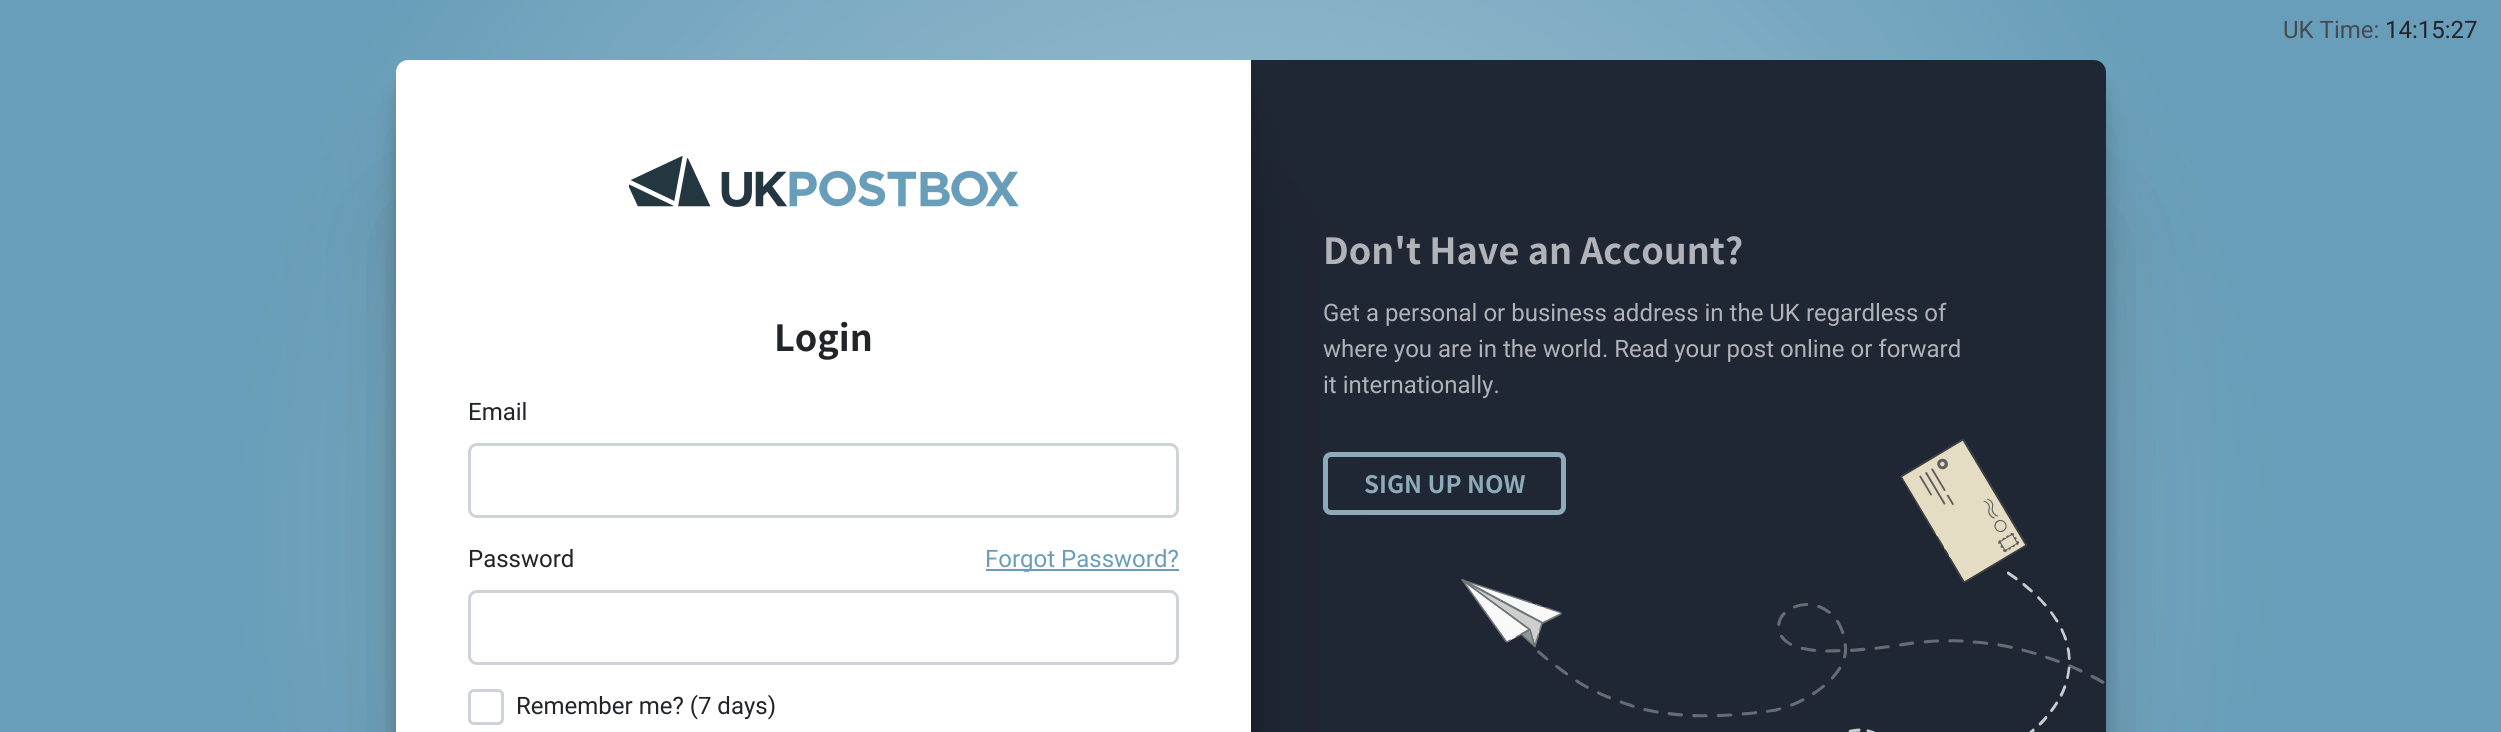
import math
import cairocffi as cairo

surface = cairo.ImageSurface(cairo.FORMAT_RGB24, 2501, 732)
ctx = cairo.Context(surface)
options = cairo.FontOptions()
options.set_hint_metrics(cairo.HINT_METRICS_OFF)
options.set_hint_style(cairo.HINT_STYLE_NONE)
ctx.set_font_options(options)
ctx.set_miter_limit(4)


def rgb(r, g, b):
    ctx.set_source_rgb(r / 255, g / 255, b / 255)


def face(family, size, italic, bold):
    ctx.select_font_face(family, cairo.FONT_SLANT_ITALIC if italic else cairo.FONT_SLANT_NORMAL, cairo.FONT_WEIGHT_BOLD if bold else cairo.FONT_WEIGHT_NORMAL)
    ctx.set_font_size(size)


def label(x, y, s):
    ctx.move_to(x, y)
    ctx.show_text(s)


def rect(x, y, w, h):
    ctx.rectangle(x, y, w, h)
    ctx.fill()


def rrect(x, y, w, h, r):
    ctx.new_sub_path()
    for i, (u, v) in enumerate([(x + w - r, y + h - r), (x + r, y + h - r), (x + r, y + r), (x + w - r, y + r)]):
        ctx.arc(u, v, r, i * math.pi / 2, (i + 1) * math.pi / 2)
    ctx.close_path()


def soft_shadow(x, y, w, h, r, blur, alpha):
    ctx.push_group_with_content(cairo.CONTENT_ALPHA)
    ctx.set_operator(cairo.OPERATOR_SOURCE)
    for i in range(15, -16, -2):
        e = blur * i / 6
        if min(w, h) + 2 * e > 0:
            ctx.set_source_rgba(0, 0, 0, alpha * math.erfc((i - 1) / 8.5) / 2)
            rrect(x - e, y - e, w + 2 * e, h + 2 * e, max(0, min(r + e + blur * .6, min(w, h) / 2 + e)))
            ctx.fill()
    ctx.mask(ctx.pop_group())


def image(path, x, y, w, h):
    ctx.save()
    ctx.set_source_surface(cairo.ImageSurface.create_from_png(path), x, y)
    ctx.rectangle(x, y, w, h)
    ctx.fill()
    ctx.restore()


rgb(255, 255, 255)
ctx.paint()
gradient = cairo.RadialGradient(1251, 544, 0, 1251, 544, 1364)
gradient.add_color_stop_rgba(0, 0.659, 0.78, 0.843, 1)
gradient.add_color_stop_rgba(0.75, 0.408, 0.62, 0.725, 1)
ctx.set_source(gradient)
rect(0, 0, 2501, 732)
rgb(0, 0, 0)
soft_shadow(396, 210, 1710, 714, 12, 60, 0.12)
face('Roboto', 24, 0, 0)
rgb(67, 75, 83)
label(2283, 38, 'UK Time:')
rgb(33, 37, 41)
label(2385, 38, '14:15:27')
rgb(0, 0, 0)
soft_shadow(396, 123, 1710, 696, 12, 25, 0.09)
soft_shadow(396, 93, 1710, 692, 12, 13.5, 0.07)
soft_shadow(396, 80, 1710, 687, 12, 7.5, 0.1)
rgb(31, 38, 52)
ctx.new_path()
ctx.move_to(1251, 60)
ctx.line_to(2094, 60)
ctx.curve_to(2100.5, 60, 2106, 65.5, 2106, 72)
ctx.line_to(2106, 732)
ctx.curve_to(2106, 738.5, 2100.5, 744, 2094, 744)
ctx.line_to(1251, 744)
ctx.close_path()
ctx.fill()
image('image1.png', 1461, 438, 644, 294)
rrect(1325.5, 454.5, 238, 58, 5.5)
rgb(142, 171, 185)
ctx.set_line_width(5)
ctx.stroke()
ctx.save()
rrect(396, 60, 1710, 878, 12)
ctx.clip()
rgb(0, 0, 0)
soft_shadow(396, 210, 855, 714, 12, 60, 0.12)
soft_shadow(396, 123, 855, 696, 12, 25, 0.09)
soft_shadow(396, 93, 855, 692, 12, 13.5, 0.07)
soft_shadow(396, 80, 855, 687, 12, 7.5, 0.1)
ctx.restore()
rgb(255, 255, 255)
ctx.new_path()
ctx.move_to(408, 60)
ctx.line_to(1251, 60)
ctx.line_to(1251, 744)
ctx.line_to(408, 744)
ctx.curve_to(401.5, 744, 396, 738.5, 396, 732)
ctx.line_to(396, 72)
ctx.curve_to(396, 65.5, 401.5, 60, 408, 60)
ctx.close_path()
ctx.fill()
image('image0.png', 629, 156, 390, 51)
face('Noto Sans JP', 36, 0, 1)
rgb(33, 37, 41)
label(774, 351, 'Login')
face('Roboto', 24, 0, 0)
label(468, 420, 'Email')
rrect(469.5, 444.5, 708, 72, 7.5)
rgb(206, 210, 217)
ctx.set_line_width(3)
ctx.stroke()
rgb(33, 37, 41)
label(468, 567, 'Password')
rgb(104, 158, 185)
rect(986, 569, 193, 2)
label(985, 567, 'Forgot Password?')
rrect(469.5, 591.5, 708, 72, 7.5)
rgb(206, 210, 217)
ctx.stroke()
rrect(469.5, 690.5, 33, 33, 4.5)
ctx.stroke()
rgb(33, 37, 41)
label(516, 714, 'Remember me? (7 days)')
face('Noto Sans JP', 36, 0, 1)
rgb(177, 179, 184)
label(1323, 264, 'Don\'t Have an Account?')
face('Roboto', 24, 0, 0)
label(1323, 321, 'Get a personal or business address in the UK regardless of')
label(1323, 357, 'where you are in the world. Read your post online or forward')
label(1323, 393, 'it internationally.')
face('Noto Sans JP', 24, 0, 1)
rgb(142, 171, 185)
label(1364, 493, 'SIGN UP NOW')
surface.write_to_png('render.png')
